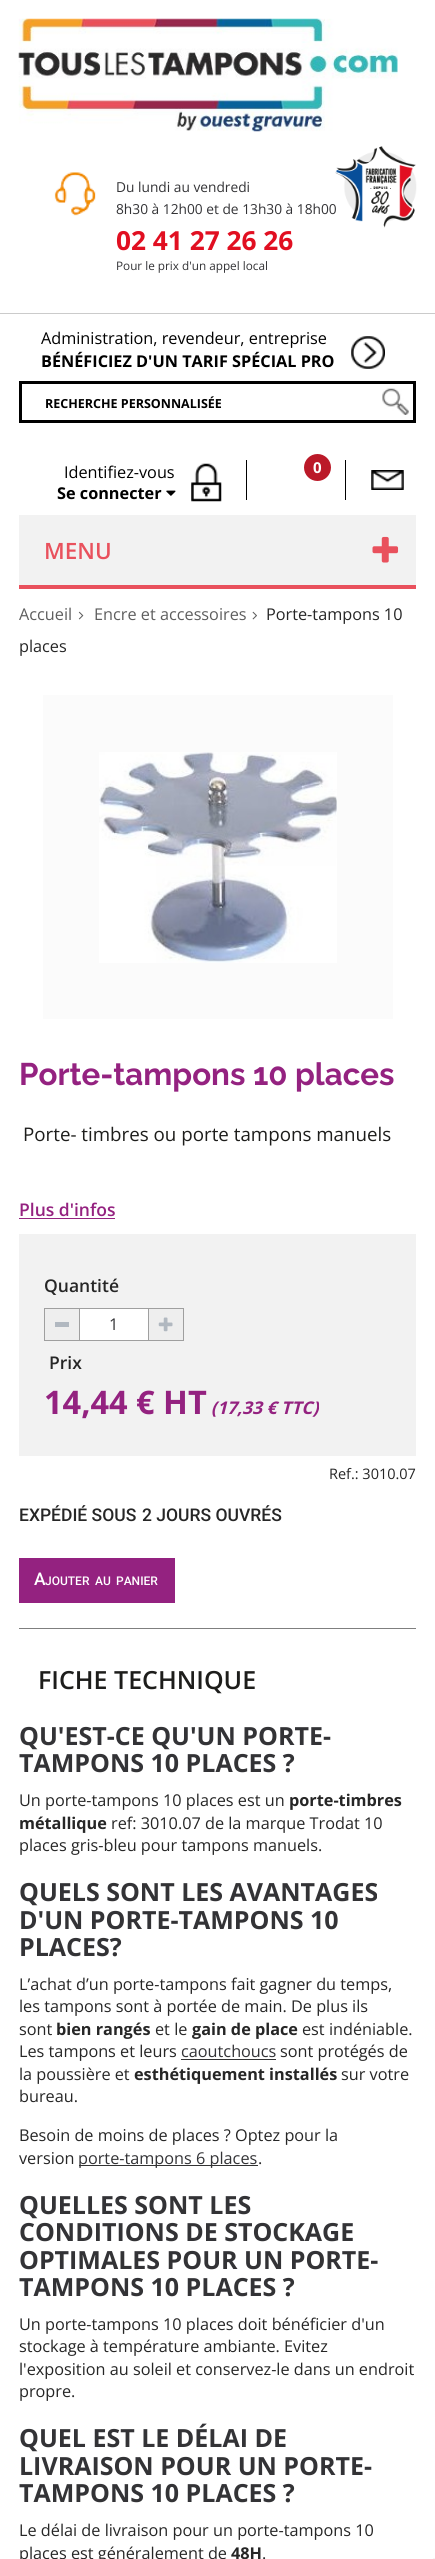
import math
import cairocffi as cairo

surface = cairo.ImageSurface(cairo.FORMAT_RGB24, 435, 2559)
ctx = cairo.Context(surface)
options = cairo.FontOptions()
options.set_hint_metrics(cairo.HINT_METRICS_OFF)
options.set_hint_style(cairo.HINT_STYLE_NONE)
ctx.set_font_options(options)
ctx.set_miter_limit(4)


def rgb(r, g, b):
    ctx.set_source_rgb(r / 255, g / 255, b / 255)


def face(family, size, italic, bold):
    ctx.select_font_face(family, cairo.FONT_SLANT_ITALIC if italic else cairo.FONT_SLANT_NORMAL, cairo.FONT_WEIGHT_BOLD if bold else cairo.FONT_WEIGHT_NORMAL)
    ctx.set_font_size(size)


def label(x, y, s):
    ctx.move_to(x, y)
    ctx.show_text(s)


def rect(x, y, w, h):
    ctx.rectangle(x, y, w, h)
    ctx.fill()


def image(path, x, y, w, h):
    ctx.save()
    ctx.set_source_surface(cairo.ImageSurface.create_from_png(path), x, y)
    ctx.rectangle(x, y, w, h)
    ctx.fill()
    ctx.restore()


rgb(255, 255, 255)
ctx.paint()
image('image0.png', 18, 18, 380, 114)
image('image1.png', 335, 146, 82, 82)
image('image2.png', 54, 172, 42, 44)
face('Open Sans', 13.75, 0, 0)
rgb(51, 51, 54)
label(116, 192, 'Du lundi au vendredi')
label(116, 214, '8h30 à 12h00 et de 13h30 à 18h00')
face('Open Sans', 26.25, 0, 1)
rgb(225, 15, 33)
label(116, 250, '02 41 27 26 26')
face('Open Sans', 11.75, 0, 0)
rgb(51, 51, 54)
label(116, 270, 'Pour le prix d\'un appel local')
rgb(203, 203, 203)
rect(0, 313, 435, 1)
image('image3.png', 351, 336, 34, 33)
face('Open Sans', 16.25, 0, 0)
rgb(0, 0, 0)
label(41, 344, 'Administration, revendeur, entreprise')
face('Open Sans', 16.25, 0, 1)
label(41, 367, 'BÉNÉFICIEZ D\'UN TARIF SPÉCIAL PRO')
ctx.rectangle(20.5, 382.5, 394, 39)
ctx.set_line_width(3)
ctx.stroke()
face('Open Sans', 12.5, 0, 1)
label(45, 408, 'RECHERCHE PERSONNALISÉE')
image('image4.png', 382, 388, 27, 27)
image('image5.png', 191, 463, 31, 39)
face('Open Sans', 16.25, 0, 0)
label(64, 478, 'Identifiez-vous')
face('Open Sans', 16.25, 0, 1)
label(57, 499, 'Se connecter')
image('image6.png', 166, 490, 10, 6)
rect(345, 460, 1, 40)
rect(246, 460, 1, 40)
rgb(187, 25, 40)
ctx.arc(317.5, 467.5, 13.5, 0, 2 * math.pi)
ctx.fill()
face('Open Sans', 15, 0, 1)
rgb(255, 255, 255)
label(313, 473, '0')
image('image7.png', 371, 470, 33, 20)
rgb(242, 242, 242)
rect(19, 515, 397, 70)
rgb(233, 81, 93)
rect(19, 585, 397, 4)
face('Open Sans SemiBold', 22.5, 0, 0)
label(44, 559, 'MENU')
image('image8.png', 372, 536, 27, 27)
face('Open Sans', 16.25, 0, 0)
rgb(94, 94, 94)
label(19, 620, 'Accueil')
image('image9.png', 78, 611, 6, 9)
label(94, 620, 'Encre et accessoires')
image('image10.png', 252, 611, 5, 9)
rgb(38, 38, 38)
label(266, 620, 'Porte-tampons 10')
label(19, 652, 'places')
rgb(251, 251, 251)
rect(43, 695, 350, 324)
image('image11.png', 99, 752, 238, 211)
face('Raleway', 31.25, 0, 1)
rgb(148, 34, 128)
label(19, 1085, 'Porte-tampons 10 places')
face('Open Sans', 18.75, 0, 0)
rgb(29, 29, 27)
label(23, 1141, 'Porte- timbres ou porte tampons manuels')
face('Open Sans SemiBold', 17.5, 0, 0)
rgb(148, 34, 128)
label(19, 1216, 'Plus d\'infos')
rect(19, 1218, 96, 1)
rgb(242, 242, 242)
rect(19, 1234, 397, 222)
rgb(38, 38, 38)
label(44, 1292, 'Quantité')
ctx.rectangle(44.5, 1308.5, 35, 32)
rgb(159, 159, 159)
ctx.set_line_width(1)
ctx.stroke()
rgb(238, 238, 238)
rect(45, 1309, 34, 31)
rgb(177, 184, 192)
rect(55, 1322, 14, 5)
rgb(255, 255, 255)
rect(80, 1309, 68, 31)
rgb(159, 159, 159)
rect(80, 1308, 68, 1)
rect(80, 1340, 68, 1)
face('Open Sans', 16.25, 0, 0)
rgb(51, 51, 54)
label(109, 1330, '1')
ctx.rectangle(148.5, 1308.5, 35, 32)
rgb(159, 159, 159)
ctx.stroke()
rgb(238, 238, 238)
rect(149, 1309, 34, 31)
image('image12.png', 158, 1317, 15, 15)
face('Open Sans SemiBold', 17.5, 0, 0)
rgb(38, 38, 38)
label(49, 1369, 'Prix')
face('Open Sans', 32.5, 0, 1)
rgb(148, 34, 128)
label(44, 1414, '14,44 € HT')
face('Open Sans', 17.5, 1, 1)
label(211, 1414, '(17,33 € TTC)')
face('Open Sans', 14.5, 0, 0)
rgb(38, 38, 38)
label(329, 1479, 'Ref.: 3010.07')
face('Roboto Medium', 17.5, 0, 0)
label(19, 1521, 'EXPÉDIÉ SOUS')
label(142, 1521, '2 JOURS OUVRÉS')
rgb(148, 34, 128)
rect(19, 1558, 156, 45)
rgb(255, 255, 255)
label(34, 1585, 'A')
face('Roboto Medium', 12, 0, 0)
label(45, 1585, 'JOUTER')
label(95, 1585, 'AU')
label(116, 1585, 'PANIER')
rgb(127, 127, 127)
rect(19, 1628, 397, 1)
face('Open Sans SemiBold', 25, 0, 0)
rgb(29, 29, 27)
label(38, 1689, 'FICHE TECHNIQUE')
face('Open Sans', 25, 0, 1)
rgb(51, 51, 54)
label(19, 1745, 'QU\'EST-CE QU\'UN PORTE-')
label(19, 1772, 'TAMPONS 10 PLACES ?')
face('Open Sans', 16.25, 0, 0)
rgb(38, 38, 38)
label(19, 1806, 'Un porte-tampons 10 places est un')
face('Open Sans', 16.25, 0, 1)
label(289, 1806, 'porte-timbres')
label(19, 1829, 'métallique')
face('Open Sans', 16.25, 0, 0)
label(111, 1829, 'ref: 3010.07 de la marque Trodat 10')
label(19, 1851, 'places gris-bleu pour tampons manuels.')
face('Open Sans', 25, 0, 1)
rgb(51, 51, 54)
label(19, 1901, 'QUELS SONT LES AVANTAGES')
label(19, 1929, 'D\'UN PORTE-TAMPONS 10')
label(19, 1956, 'PLACES?')
face('Open Sans', 16.25, 0, 0)
rgb(38, 38, 38)
label(19, 1990, 'L’achat d’un porte-tampons fait gagner du temps,')
label(19, 2012, 'les tampons sont à portée de main. De plus ils')
label(19, 2035, 'sont')
face('Open Sans', 16.25, 0, 1)
label(56, 2035, 'bien rangés')
face('Open Sans', 16.25, 0, 0)
label(155, 2035, 'et le')
face('Open Sans', 16.25, 0, 1)
label(192, 2035, 'gain de place')
face('Open Sans', 16.25, 0, 0)
label(302, 2035, 'est indéniable.')
label(19, 2057, 'Les tampons et leurs')
rgb(51, 51, 54)
label(181, 2057, 'caoutchoucs')
rgb(51, 51, 51)
rect(181, 2059, 95, 1)
rgb(38, 38, 38)
label(280, 2057, 'sont protégés de')
label(19, 2080, 'la poussière et')
face('Open Sans', 16.25, 0, 1)
label(134, 2080, 'esthétiquement installés')
face('Open Sans', 16.25, 0, 0)
label(341, 2080, 'sur votre')
label(19, 2102, 'bureau.')
label(19, 2141, 'Besoin de moins de places ? Optez pour la')
label(19, 2164, 'version')
rgb(51, 51, 51)
rect(79, 2165, 179, 1)
rgb(51, 51, 54)
label(78, 2164, 'porte-tampons 6 places')
rgb(38, 38, 38)
label(258, 2164, '.')
face('Open Sans', 25, 0, 1)
rgb(51, 51, 54)
label(19, 2214, 'QUELLES SONT LES')
label(19, 2241, 'CONDITIONS DE STOCKAGE')
label(19, 2269, 'OPTIMALES POUR UN PORTE-')
label(19, 2296, 'TAMPONS 10 PLACES ?')
face('Open Sans', 16.25, 0, 0)
rgb(38, 38, 38)
label(19, 2330, 'Un porte-tampons 10 places doit bénéficier d\'un')
label(19, 2352, 'stockage à température ambiante. Evitez')
label(19, 2375, 'l\'exposition au soleil et conservez-le dans un endroit')
label(19, 2397, 'propre.')
face('Open Sans', 25, 0, 1)
rgb(51, 51, 54)
label(19, 2447, 'QUEL EST LE DÉLAI DE')
label(19, 2475, 'LIVRAISON POUR UN PORTE-')
label(19, 2502, 'TAMPONS 10 PLACES ?')
face('Open Sans', 16.25, 0, 0)
rgb(38, 38, 38)
label(19, 2536, 'Le délai de livraison pour un porte-tampons 10')
label(19, 2559, 'places est généralement de')
face('Open Sans', 16.25, 0, 1)
label(231, 2559, '48H')
face('Open Sans', 16.25, 0, 0)
label(262, 2559, '.')
rgb(245, 245, 245)
rect(433, 2558, 2, 1)
surface.write_to_png('render.png')
